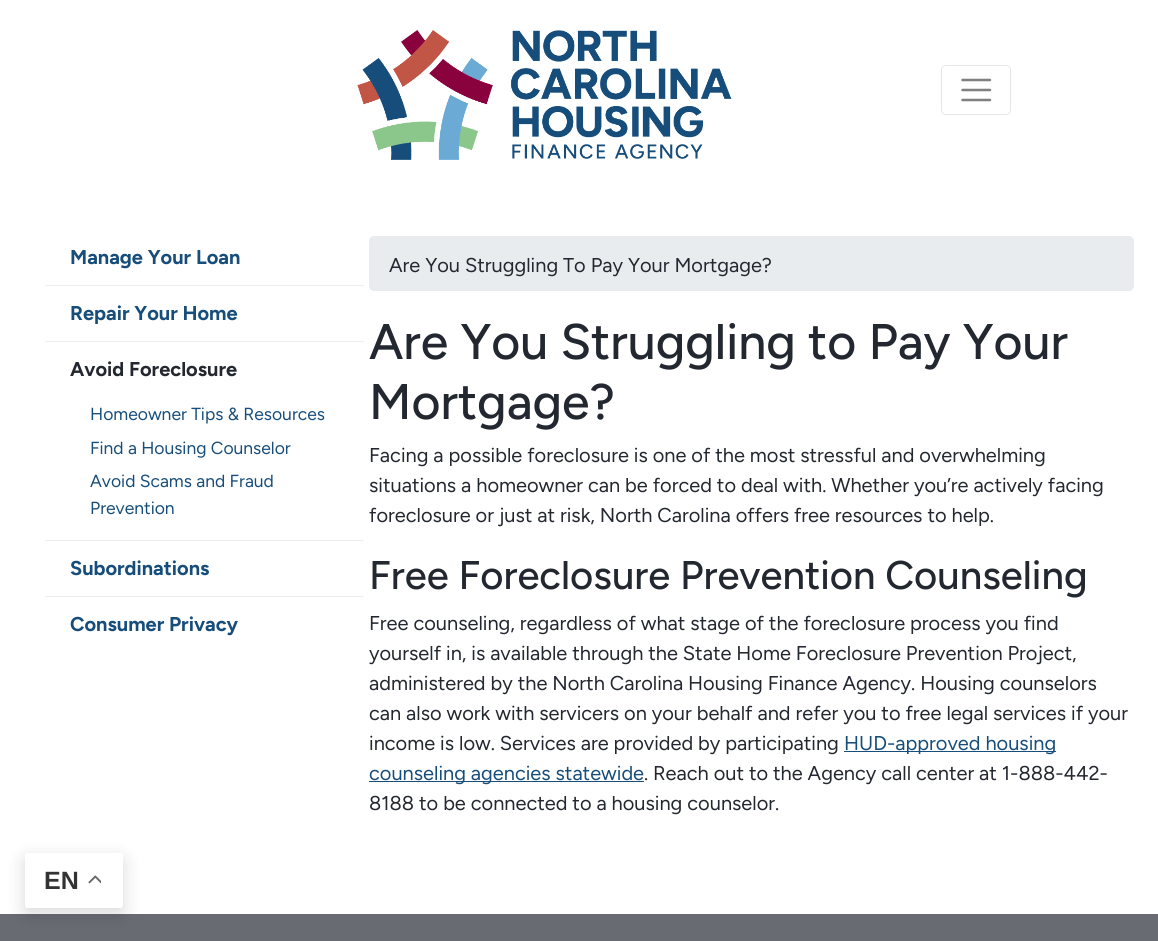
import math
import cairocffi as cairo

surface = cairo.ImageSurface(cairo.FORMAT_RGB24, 1158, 941)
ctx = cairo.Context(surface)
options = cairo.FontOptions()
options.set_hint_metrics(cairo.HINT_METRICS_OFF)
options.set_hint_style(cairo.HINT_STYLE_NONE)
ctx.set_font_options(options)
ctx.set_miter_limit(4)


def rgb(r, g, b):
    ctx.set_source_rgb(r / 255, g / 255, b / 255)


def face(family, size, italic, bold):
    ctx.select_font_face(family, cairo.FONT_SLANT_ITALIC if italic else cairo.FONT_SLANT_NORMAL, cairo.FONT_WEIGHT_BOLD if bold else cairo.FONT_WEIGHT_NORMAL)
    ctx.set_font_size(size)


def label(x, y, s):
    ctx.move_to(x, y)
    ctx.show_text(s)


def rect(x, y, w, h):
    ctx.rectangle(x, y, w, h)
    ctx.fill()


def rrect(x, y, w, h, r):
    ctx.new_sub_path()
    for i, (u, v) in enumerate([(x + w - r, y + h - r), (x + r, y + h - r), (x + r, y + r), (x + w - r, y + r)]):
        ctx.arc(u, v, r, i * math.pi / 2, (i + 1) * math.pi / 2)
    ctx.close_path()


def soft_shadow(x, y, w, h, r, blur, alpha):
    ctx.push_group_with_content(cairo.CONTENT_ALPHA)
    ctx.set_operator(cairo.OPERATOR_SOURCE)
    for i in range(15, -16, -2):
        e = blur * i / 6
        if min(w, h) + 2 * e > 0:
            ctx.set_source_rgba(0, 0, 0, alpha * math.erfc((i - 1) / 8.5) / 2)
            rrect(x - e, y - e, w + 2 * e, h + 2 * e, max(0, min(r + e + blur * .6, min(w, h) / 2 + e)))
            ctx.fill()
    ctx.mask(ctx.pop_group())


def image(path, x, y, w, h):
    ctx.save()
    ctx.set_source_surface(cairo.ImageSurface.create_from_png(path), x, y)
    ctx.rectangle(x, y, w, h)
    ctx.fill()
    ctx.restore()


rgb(255, 255, 255)
ctx.paint()
image('image0.png', 357, 30, 375, 130)
rrect(941.5, 65.5, 69, 49, 4.5)
rgb(230, 230, 230)
ctx.set_line_width(1)
ctx.stroke()
ctx.new_path()
ctx.move_to(962.5, 80)
ctx.line_to(990, 80)
ctx.move_to(962.5, 90)
ctx.line_to(990, 90)
ctx.move_to(962.5, 100)
ctx.line_to(990, 100)
rgb(128, 128, 128)
ctx.set_line_width(2.5)
ctx.set_line_cap(cairo.LINE_CAP_ROUND)
ctx.stroke()
face('Figtree', 20, 0, 1)
rgb(23, 77, 122)
label(70, 264, 'Manage Your Loan')
rgb(238, 238, 238)
rect(45, 285, 319, 1)
rgb(23, 77, 122)
label(70, 320, 'Repair Your Home')
rgb(238, 238, 238)
rect(45, 341, 319, 1)
rgb(35, 39, 47)
label(70, 376, 'Avoid Foreclosure')
face('Figtree', 17.5, 0, 0)
rgb(23, 77, 122)
label(90, 420, 'Homeowner Tips & Resources')
label(90, 454, 'Find a Housing Counselor')
label(90, 487, 'Avoid Scams and Fraud')
label(90, 514, 'Prevention')
rgb(238, 238, 238)
rect(45, 540, 319, 1)
face('Figtree', 20, 0, 1)
rgb(23, 77, 122)
label(70, 575, 'Subordinations')
rgb(238, 238, 238)
rect(45, 596, 319, 1)
rgb(23, 77, 122)
label(70, 631, 'Consumer Privacy')
rgb(233, 236, 239)
rrect(369, 236, 765, 55, 5)
ctx.fill()
face('Figtree', 20, 0, 0)
rgb(35, 39, 47)
label(389, 272, 'Are You Struggling To Pay Your Mortgage?')
face('Figtree Medium', 50, 0, 0)
label(369, 359, 'Are You Struggling to Pay Your')
label(369, 419, 'Mortgage?')
face('Figtree', 20, 0, 0)
label(369, 462, 'Facing a possible foreclosure is one of the most stressful and overwhelming')
label(369, 492, 'situations a homeowner can be forced to deal with. Whether you’re actively facing')
label(369, 522, 'foreclosure or just at risk, North Carolina offers free resources to help.')
face('Figtree Medium', 40, 0, 0)
label(369, 589, 'Free Foreclosure Prevention Counseling')
face('Figtree', 20, 0, 0)
label(369, 630, 'Free counseling, regardless of what stage of the foreclosure process you find')
label(369, 660, 'yourself in, is available through the State Home Foreclosure Prevention Project,')
label(369, 690, 'administered by the North Carolina Housing Finance Agency. Housing counselors')
label(369, 720, 'can also work with servicers on your behalf and refer you to free legal services if your')
label(369, 750, 'income is low. Services are provided by participating')
rgb(23, 77, 122)
rect(844, 751, 212, 1)
label(844, 750, 'HUD-approved housing')
rect(369, 781, 275, 1)
label(369, 780, 'counseling agencies statewide')
rgb(35, 39, 47)
label(644, 780, '. Reach out to the Agency call center at 1-888-442-')
label(369, 810, '8188 to be connected to a housing counselor.')
rgb(104, 108, 114)
rect(0, 914, 1158, 27)
rgb(0, 0, 0)
soft_shadow(25, 859, 98, 55, 2.5, 9.5, 0.15)
rgb(255, 255, 255)
rrect(25, 853, 98, 55, 2.5)
ctx.fill()
face('Liberation Sans', 25, 0, 1)
rgb(51, 51, 51)
label(44, 889, 'EN')
image('image1.png', 88, 875, 13, 9)
surface.write_to_png('render.png')
